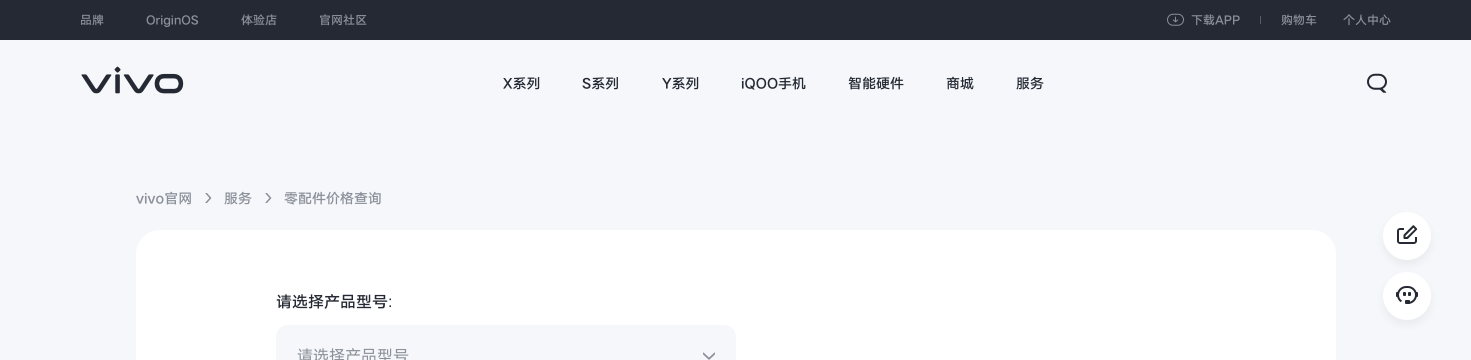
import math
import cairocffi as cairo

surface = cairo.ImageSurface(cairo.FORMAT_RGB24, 1471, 360)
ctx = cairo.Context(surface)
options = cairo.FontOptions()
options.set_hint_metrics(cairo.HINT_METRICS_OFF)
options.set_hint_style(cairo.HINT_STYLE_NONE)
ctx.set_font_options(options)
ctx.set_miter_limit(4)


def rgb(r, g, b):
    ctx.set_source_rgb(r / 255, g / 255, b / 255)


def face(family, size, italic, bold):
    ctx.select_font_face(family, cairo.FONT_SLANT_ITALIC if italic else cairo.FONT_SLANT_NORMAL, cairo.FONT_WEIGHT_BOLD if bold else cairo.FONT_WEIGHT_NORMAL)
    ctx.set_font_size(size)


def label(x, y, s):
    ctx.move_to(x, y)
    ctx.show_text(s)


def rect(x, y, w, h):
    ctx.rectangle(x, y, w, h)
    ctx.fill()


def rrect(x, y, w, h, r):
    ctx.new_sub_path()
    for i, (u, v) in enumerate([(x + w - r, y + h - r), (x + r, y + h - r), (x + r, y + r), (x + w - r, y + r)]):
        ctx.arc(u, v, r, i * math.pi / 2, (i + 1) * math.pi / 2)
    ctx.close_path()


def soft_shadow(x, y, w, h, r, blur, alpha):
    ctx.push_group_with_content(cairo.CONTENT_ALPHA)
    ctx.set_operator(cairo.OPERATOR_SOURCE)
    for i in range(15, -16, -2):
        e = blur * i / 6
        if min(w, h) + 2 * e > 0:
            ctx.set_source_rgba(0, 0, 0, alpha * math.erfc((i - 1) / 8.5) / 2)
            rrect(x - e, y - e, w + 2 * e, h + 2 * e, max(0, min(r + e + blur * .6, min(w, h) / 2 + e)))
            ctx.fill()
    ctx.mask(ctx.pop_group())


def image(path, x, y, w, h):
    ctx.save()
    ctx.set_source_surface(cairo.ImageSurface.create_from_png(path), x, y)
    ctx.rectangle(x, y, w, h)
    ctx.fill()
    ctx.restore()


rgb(245, 247, 250)
ctx.paint()
rgb(36, 41, 51)
rect(0, 0, 1471, 40)
face('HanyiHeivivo', 12, 0, 0)
rgb(138, 143, 153)
label(80, 24, '品牌')
label(146, 24, 'OriginOS')
label(241, 24, '体验店')
label(319, 24, '官网社区')
image('image0.png', 1167, 13, 17, 13)
label(1191, 24, '下载APP')
rgb(87, 92, 102)
rect(1260, 16, 1, 8)
rgb(138, 143, 153)
label(1281, 24, '购物车')
label(1343, 24, '个人中心')
image('image1.png', 81, 66, 103, 28)
face('HanyiHeivivo', 14, 0, 0)
rgb(36, 41, 51)
label(503, 88, 'X系列')
label(582, 88, 'S系列')
label(662, 88, 'Y系列')
label(741, 88, 'iQOO手机')
label(848, 88, '智能硬件')
label(946, 88, '商城')
label(1016, 88, '服务')
image('image2.png', 1367, 73, 20, 20)
rgb(138, 143, 153)
label(136, 203, 'vivo官网')
image('image3.png', 205, 193, 7, 10)
label(224, 203, '服务')
image('image3.png', 265, 193, 7, 10)
label(284, 203, '零配件价格查询')
rgb(255, 255, 255)
rrect(136, 230, 1200, 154, 24)
ctx.fill()
face('HanyiHeivivo', 16, 0, 0)
rgb(36, 41, 51)
label(276, 307, '请选择产品型号')
face('Liberation Sans', 16, 0, 0)
label(388, 307, ':')
rgb(245, 247, 250)
rrect(276, 325, 460, 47, 12)
ctx.fill()
face('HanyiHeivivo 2', 16, 0, 0)
rgb(138, 143, 153)
label(297, 361, '请选择产品型号')
image('image4.png', 703, 352, 12, 8)
rgb(0, 0, 0)
soft_shadow(1383, 217, 48, 48, 24, 4, 0.05)
rgb(255, 255, 255)
ctx.arc(1407, 236, 24, 0, 2 * math.pi)
ctx.fill()
image('image5.png', 1397, 225, 21, 19)
rgb(0, 0, 0)
soft_shadow(1383, 277, 48, 48, 24, 4, 0.05)
rgb(255, 255, 255)
ctx.arc(1407, 296, 24, 0, 2 * math.pi)
ctx.fill()
image('image6.png', 1396, 286, 22, 18)
surface.write_to_png('render.png')
